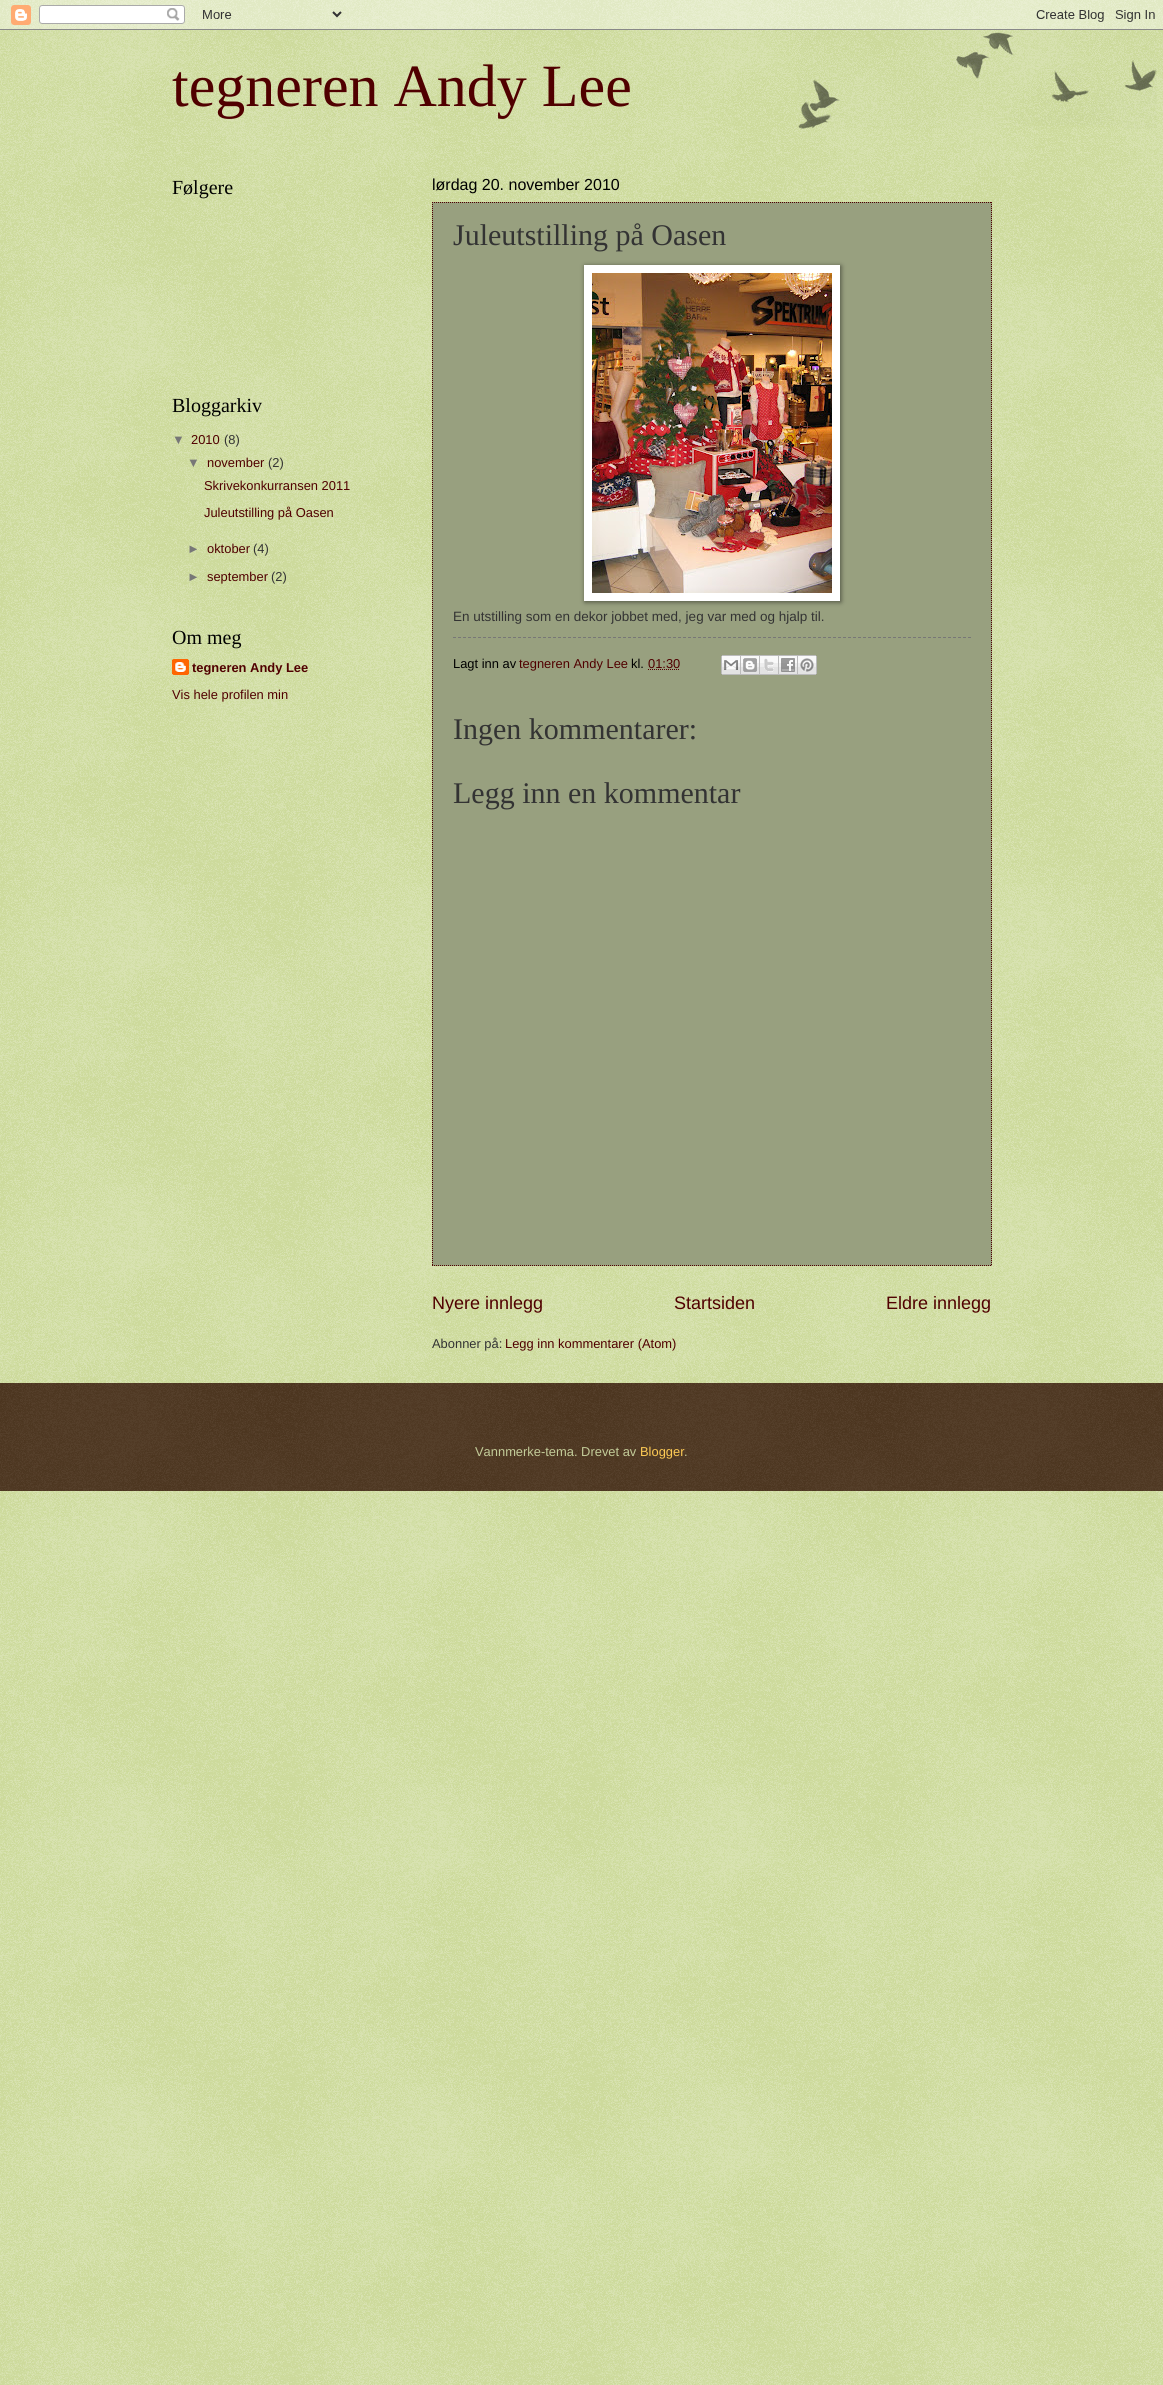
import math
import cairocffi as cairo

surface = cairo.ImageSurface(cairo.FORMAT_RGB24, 1163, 2385)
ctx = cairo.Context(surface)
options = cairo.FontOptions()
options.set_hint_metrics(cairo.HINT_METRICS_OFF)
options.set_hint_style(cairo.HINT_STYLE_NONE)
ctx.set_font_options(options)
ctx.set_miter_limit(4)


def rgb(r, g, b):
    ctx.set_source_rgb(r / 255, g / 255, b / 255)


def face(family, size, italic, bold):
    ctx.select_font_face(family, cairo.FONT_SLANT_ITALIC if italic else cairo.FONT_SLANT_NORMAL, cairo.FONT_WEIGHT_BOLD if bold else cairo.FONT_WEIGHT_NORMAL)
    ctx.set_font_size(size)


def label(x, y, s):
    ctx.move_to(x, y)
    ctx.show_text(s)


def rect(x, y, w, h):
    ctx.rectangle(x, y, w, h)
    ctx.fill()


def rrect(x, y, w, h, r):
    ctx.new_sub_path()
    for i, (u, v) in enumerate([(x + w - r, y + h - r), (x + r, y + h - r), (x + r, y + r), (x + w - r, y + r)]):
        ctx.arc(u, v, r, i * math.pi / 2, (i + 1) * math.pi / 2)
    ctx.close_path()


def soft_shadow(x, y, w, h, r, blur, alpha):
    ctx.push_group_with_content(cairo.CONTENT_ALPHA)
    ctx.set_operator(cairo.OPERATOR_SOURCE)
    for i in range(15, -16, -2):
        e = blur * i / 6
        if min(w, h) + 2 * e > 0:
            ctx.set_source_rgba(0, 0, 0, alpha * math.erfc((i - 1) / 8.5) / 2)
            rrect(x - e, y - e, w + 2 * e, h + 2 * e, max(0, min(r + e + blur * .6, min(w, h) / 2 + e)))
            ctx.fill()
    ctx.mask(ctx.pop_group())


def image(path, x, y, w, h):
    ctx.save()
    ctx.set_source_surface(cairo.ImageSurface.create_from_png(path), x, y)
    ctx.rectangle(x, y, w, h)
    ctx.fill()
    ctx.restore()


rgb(169, 192, 84)
ctx.paint()
image('image0.png', 0, 0, 1163, 2385)
image('image1.png', 0, 0, 1163, 30)
image('image2.png', 798, 32, 359, 97)
face('Liberation Serif', 60, 0, 0)
rgb(80, 0, 0)
label(172, 106, 'tegneren Andy Lee')
face('Liberation Serif', 20, 0, 0)
rgb(0, 0, 0)
label(172, 194, 'Følgere')
label(172, 412, 'Bloggarkiv')
face('Liberation Sans', 12.9, 0, 0)
rgb(119, 119, 119)
label(172, 444, '▼')
rgb(80, 0, 0)
label(191, 444, '2010')
rgb(51, 51, 51)
label(224, 444, '(8)')
rgb(119, 119, 119)
label(187, 467, '▼')
rgb(80, 0, 0)
label(207, 467, 'november')
rgb(51, 51, 51)
label(268, 467, '(2)')
rgb(80, 0, 0)
label(204, 490, 'Skrivekonkurransen 2011')
label(204, 517, 'Juleutstilling på Oasen')
rgb(119, 119, 119)
label(187, 553, '►')
rgb(80, 0, 0)
label(207, 553, 'oktober')
rgb(51, 51, 51)
label(253, 553, '(4)')
rgb(119, 119, 119)
label(187, 581, '►')
rgb(80, 0, 0)
label(207, 581, 'september')
rgb(51, 51, 51)
label(271, 581, '(2)')
face('Liberation Serif', 20, 0, 0)
rgb(0, 0, 0)
label(172, 644, 'Om meg')
image('image3.png', 172, 659, 17, 16)
face('Liberation Sans', 12.9, 0, 1)
rgb(80, 0, 0)
label(192, 672, 'tegneren Andy Lee')
face('Liberation Sans', 12.9, 0, 0)
label(172, 699, 'Vis hele profilen min')
face('Liberation Sans', 16, 0, 0)
rgb(0, 0, 0)
label(432, 190, 'lørdag 20. november 2010')
rgb(152, 160, 127)
rect(432, 202, 560, 1064)
ctx.new_path()
ctx.move_to(432, 202.5)
ctx.line_to(992, 202.5)
rgb(80, 0, 0)
ctx.set_line_width(1)
ctx.set_dash([1, 1])
ctx.stroke()
ctx.new_path()
ctx.move_to(991.5, 202)
ctx.line_to(991.5, 1266)
ctx.stroke()
ctx.new_path()
ctx.move_to(432, 1265.5)
ctx.line_to(992, 1265.5)
ctx.stroke()
ctx.new_path()
ctx.move_to(432.5, 202)
ctx.line_to(432.5, 1266)
ctx.stroke()
face('Liberation Serif', 30, 0, 0)
rgb(51, 51, 51)
label(453, 245, 'Juleutstilling på Oasen')
rgb(0, 0, 0)
soft_shadow(585, 266, 256, 336, 0, 2.5, 0.5)
rgb(255, 255, 255)
rect(584, 265, 256, 336)
image('image4.png', 592, 273, 240, 320)
face('Liberation Sans', 13.5, 0, 0)
rgb(51, 51, 51)
label(453, 621, 'En utstilling som en dekor jobbet med, jeg var med og hjalp til.')
ctx.new_path()
ctx.move_to(453, 637.5)
ctx.line_to(971, 637.5)
rgb(119, 119, 119)
ctx.set_dash([3, 2])
ctx.stroke()
face('Liberation Sans', 12.9, 0, 0)
rgb(0, 0, 0)
label(453, 668, 'Lagt inn av')
rgb(80, 0, 0)
label(519, 668, 'tegneren Andy Lee')
rgb(0, 0, 0)
label(631, 668, 'kl.')
rgb(80, 0, 0)
label(648, 668, '01:30')
ctx.new_path()
ctx.move_to(648, 669.5)
ctx.line_to(680, 669.5)
ctx.set_dash([1, 1])
ctx.stroke()
image('image5.png', 721, 655, 20, 20)
image('image6.png', 741, 655, 19, 20)
image('image7.png', 760, 655, 19, 20)
image('image8.png', 779, 655, 19, 20)
image('image9.png', 798, 655, 19, 20)
face('Liberation Serif', 30, 0, 0)
rgb(51, 51, 51)
label(453, 739, 'Ingen kommentarer:')
label(453, 803, 'Legg inn en kommentar')
face('Liberation Sans', 18, 0, 0)
rgb(80, 0, 0)
label(432, 1309, 'Nyere innlegg')
label(674, 1309, 'Startsiden')
label(886, 1309, 'Eldre innlegg')
face('Liberation Sans', 12.9, 0, 0)
rgb(51, 51, 51)
label(432, 1348, 'Abonner på:')
rgb(80, 0, 0)
label(505, 1348, 'Legg inn kommentarer (Atom)')
rgb(51, 25, 0)
rect(0, 1383, 1163, 108)
image('image10.png', 0, 1383, 1163, 108)
rgb(195, 204, 153)
label(475, 1456, 'Vannmerke-tema. Drevet av')
rgb(255, 204, 85)
label(640, 1456, 'Blogger')
rgb(195, 204, 153)
label(684, 1456, '.')
surface.write_to_png('render.png')
